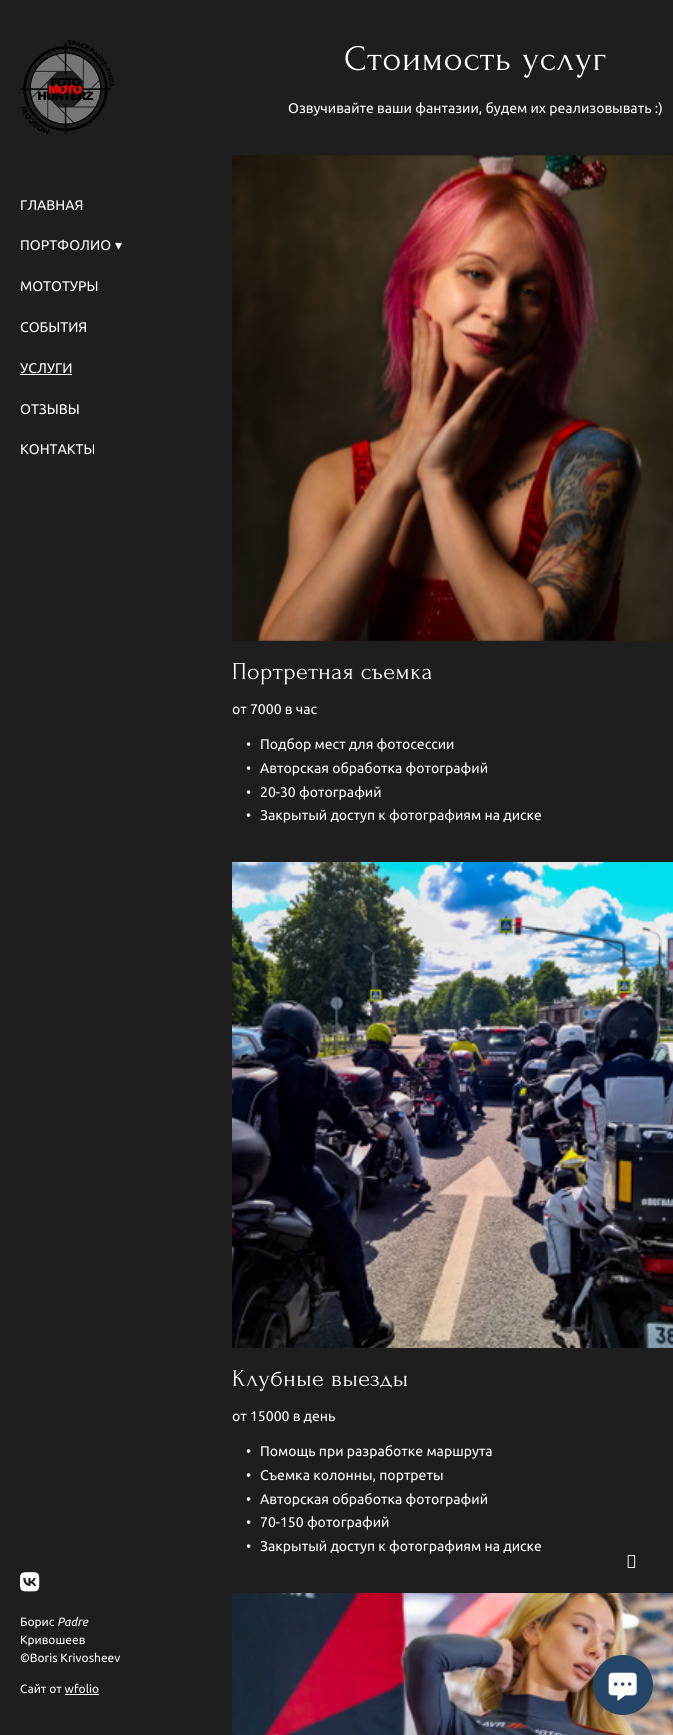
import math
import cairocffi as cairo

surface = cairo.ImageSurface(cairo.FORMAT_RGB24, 673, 1735)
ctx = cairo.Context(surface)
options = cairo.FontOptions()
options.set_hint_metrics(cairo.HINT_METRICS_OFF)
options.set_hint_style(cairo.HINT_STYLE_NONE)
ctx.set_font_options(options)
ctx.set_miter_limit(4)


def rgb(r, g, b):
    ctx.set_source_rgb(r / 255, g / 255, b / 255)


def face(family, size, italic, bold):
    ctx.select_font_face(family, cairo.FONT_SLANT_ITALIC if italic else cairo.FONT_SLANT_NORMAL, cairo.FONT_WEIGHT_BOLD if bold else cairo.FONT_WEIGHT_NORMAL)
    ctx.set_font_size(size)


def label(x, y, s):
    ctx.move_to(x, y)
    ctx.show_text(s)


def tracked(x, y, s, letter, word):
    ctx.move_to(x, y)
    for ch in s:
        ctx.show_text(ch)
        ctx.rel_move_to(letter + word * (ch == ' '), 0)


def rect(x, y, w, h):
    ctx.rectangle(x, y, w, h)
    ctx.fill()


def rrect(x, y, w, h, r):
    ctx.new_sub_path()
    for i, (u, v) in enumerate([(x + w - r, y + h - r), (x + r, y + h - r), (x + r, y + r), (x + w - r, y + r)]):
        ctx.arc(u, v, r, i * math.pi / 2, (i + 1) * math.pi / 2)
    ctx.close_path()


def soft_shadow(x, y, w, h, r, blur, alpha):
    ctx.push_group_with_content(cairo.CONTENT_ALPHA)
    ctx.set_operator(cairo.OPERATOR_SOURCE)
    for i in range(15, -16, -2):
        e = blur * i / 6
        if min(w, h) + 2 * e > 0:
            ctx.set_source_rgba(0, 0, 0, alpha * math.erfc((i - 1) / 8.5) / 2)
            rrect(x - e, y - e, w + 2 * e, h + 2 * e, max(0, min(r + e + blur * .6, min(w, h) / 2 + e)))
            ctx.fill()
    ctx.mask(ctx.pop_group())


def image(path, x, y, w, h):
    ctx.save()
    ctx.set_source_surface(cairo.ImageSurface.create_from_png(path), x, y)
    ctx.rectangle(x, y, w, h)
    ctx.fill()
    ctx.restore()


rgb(30, 30, 30)
ctx.paint()
image('image0.png', 20, 40, 94, 95)
face('Ubuntu', 14, 0, 0)
rgb(255, 255, 255)
label(20, 210, 'ГЛАВНАЯ')
label(20, 250, 'ПОРТФОЛИО')
face('DejaVu Sans', 14, 0, 0)
label(115, 250, '▾')
face('Ubuntu', 14, 0, 0)
label(20, 291, 'МОТОТУРЫ')
label(20, 332, 'СОБЫТИЯ')
label(20, 373, 'УСЛУГИ')
rect(20, 374, 52, 1)
label(20, 414, 'ОТЗЫВЫ')
label(20, 454, 'КОНТАКТЫ')
image('image1.png', 20, 1572, 20, 20)
face('Ubuntu', 12, 0, 0)
label(20, 1626, 'Борис')
face('Ubuntu', 12, 1, 0)
label(57, 1626, 'Padrе')
face('Ubuntu', 12, 0, 0)
label(20, 1644, 'Кривошеев')
label(20, 1662, '©Boris Krivosheev')
label(20, 1693, 'Сайт от wfolio')
rect(65, 1694, 34, 1)
face('Forum', 36, 0, 0)
tracked(344, 70, 'Стоимость услуг', 0.75, 0)
face('Ubuntu', 14, 0, 0)
label(288, 113, 'Озвучивайте ваши фантазии, будем их реализовывать :)')
image('image2.png', 232, 155, 441, 486)
face('Forum', 24, 0, 0)
tracked(232, 679, 'Портретная съемка', 0.5, 0)
face('Ubuntu', 14, 0, 0)
label(232, 714, 'от 7000 в час')
label(246, 749, '•')
label(260, 749, 'Подбор мест для фотосессии')
label(246, 773, '•')
label(260, 773, 'Авторская обработка фотографий')
label(246, 797, '•')
label(260, 797, '20-30 фотографий')
label(246, 820, '•')
label(260, 820, 'Закрытый доступ к фотографиям на диске')
image('image3.png', 232, 862, 441, 486)
face('Forum', 24, 0, 0)
tracked(232, 1386, 'Клубные выезды', 0.5, 0)
face('Ubuntu', 14, 0, 0)
label(232, 1421, 'от 15000 в день')
label(246, 1456, '•')
label(260, 1456, 'Помощь при разработке маршрута')
label(246, 1480, '•')
label(260, 1480, 'Съемка колонны, портреты')
label(246, 1504, '•')
label(260, 1504, 'Авторская обработка фотографий')
label(246, 1527, '•')
label(260, 1527, '70-150 фотографий')
label(246, 1551, '•')
label(260, 1551, 'Закрытый доступ к фотографиям на диске')
image('image4.png', 232, 1593, 441, 142)
image('image5.png', 627, 1555, 9, 13)
rgb(0, 0, 0)
soft_shadow(592, 1657, 62, 62, 31, 4, 0.15)
rgb(37, 69, 104)
ctx.arc(623, 1685, 30, 0, 2 * math.pi)
ctx.fill()
image('image6.png', 608, 1672, 29, 29)
surface.write_to_png('render.png')
